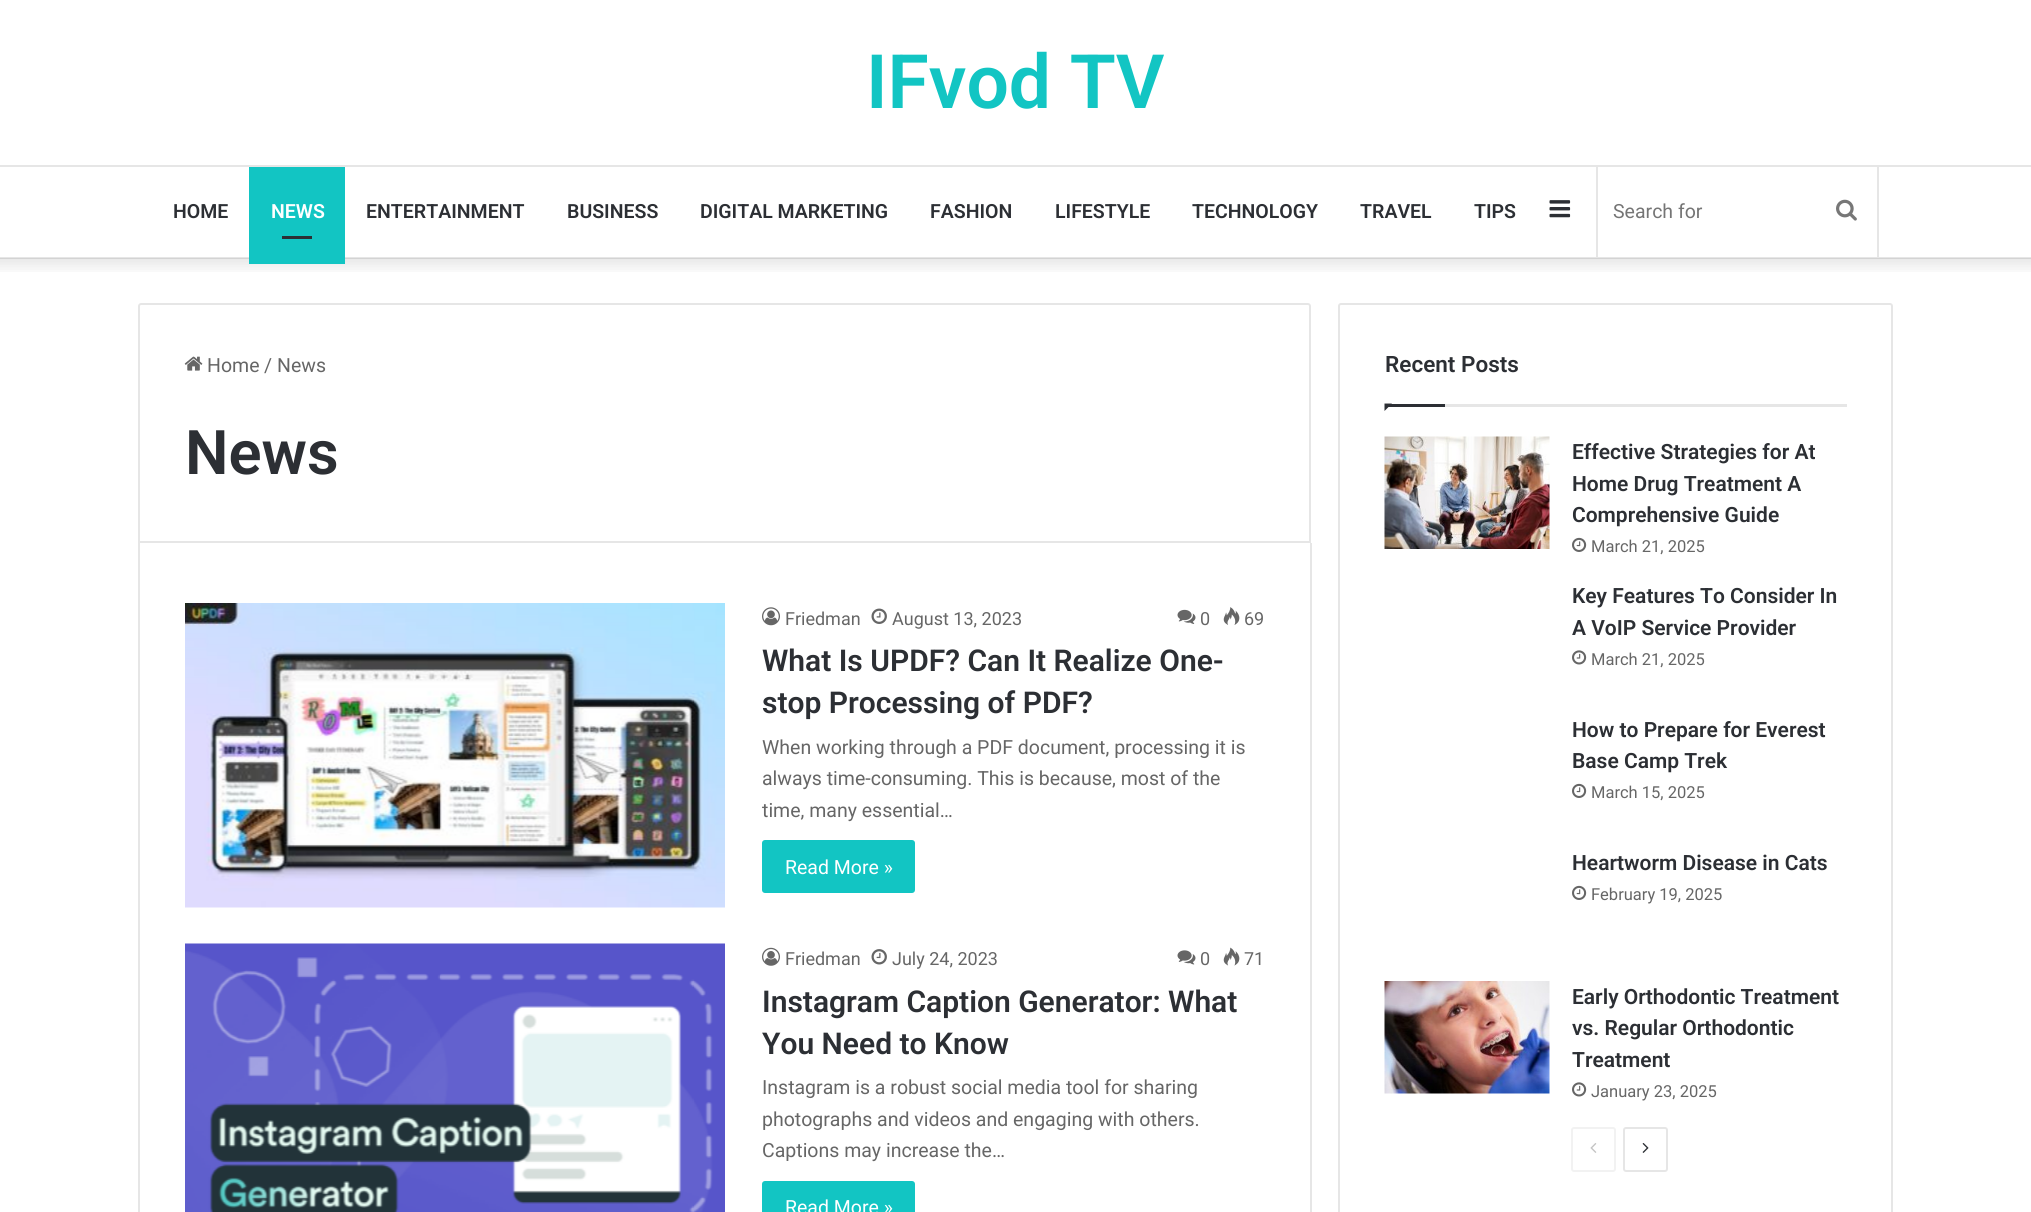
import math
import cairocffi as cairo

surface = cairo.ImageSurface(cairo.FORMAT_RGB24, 2031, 1212)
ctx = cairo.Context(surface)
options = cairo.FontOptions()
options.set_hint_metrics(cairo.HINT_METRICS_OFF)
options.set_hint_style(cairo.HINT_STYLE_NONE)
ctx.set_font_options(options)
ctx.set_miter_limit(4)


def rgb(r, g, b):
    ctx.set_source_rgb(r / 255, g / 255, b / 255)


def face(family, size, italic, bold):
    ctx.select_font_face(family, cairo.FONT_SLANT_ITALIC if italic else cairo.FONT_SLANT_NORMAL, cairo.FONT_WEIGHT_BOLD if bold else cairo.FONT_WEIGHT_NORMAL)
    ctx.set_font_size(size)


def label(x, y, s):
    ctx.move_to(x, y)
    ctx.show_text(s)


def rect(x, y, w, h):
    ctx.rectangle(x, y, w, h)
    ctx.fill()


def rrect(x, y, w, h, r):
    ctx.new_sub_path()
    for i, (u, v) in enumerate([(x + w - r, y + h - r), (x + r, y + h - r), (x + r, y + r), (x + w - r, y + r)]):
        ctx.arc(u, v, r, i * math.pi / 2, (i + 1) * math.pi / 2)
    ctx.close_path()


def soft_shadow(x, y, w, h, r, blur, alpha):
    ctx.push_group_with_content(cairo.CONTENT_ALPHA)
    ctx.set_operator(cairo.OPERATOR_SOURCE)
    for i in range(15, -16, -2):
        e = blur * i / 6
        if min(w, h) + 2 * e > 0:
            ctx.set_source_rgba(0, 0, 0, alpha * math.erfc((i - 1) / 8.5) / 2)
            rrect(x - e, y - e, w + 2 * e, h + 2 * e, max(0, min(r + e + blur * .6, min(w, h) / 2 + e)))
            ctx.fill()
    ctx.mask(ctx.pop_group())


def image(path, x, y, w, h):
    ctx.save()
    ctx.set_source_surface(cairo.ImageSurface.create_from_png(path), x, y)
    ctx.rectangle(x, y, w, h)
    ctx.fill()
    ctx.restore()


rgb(255, 255, 255)
ctx.paint()
ctx.save()
ctx.rectangle(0, 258, 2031, 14)
ctx.clip()
rgb(0, 0, 0)
soft_shadow(-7, -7, 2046, 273, 0, 7.5, 0.1)
ctx.restore()
face('Roboto SemiBold', 75, 0, 0)
rgb(18, 197, 195)
label(866, 108, 'IFvod TV')
rgb(230, 230, 230)
rect(0, 165, 2031, 2)
ctx.set_source_rgba(0, 0, 0, 0.1)
rect(0, 257, 2031, 2)
face('Roboto SemiBold', 19.5, 0, 0)
rgb(44, 47, 52)
label(173, 218, 'HOME')
rgb(18, 197, 195)
rect(249, 167, 96, 97)
rgb(255, 255, 255)
label(271, 218, 'NEWS')
rgb(44, 47, 52)
rect(282, 236, 30, 3)
label(366, 218, 'ENTERTAINMENT')
label(567, 218, 'BUSINESS')
label(700, 218, 'DIGITAL MARKETING')
label(930, 218, 'FASHION')
label(1055, 218, 'LIFESTYLE')
label(1192, 218, 'TECHNOLOGY')
label(1360, 218, 'TRAVEL')
label(1474, 218, 'TIPS')
image('image0.png', 1549, 200, 22, 18)
rgb(230, 230, 230)
rect(1877, 167, 2, 90)
rect(1596, 167, 2, 90)
face('Roboto', 19.5, 0, 0)
rgb(117, 117, 117)
label(1613, 218, 'Search for')
image('image1.png', 1836, 199, 21, 22)
ctx.new_path()
ctx.move_to(141, 304)
ctx.line_to(1308, 304)
ctx.curve_to(1309, 304, 1310, 305, 1310, 306)
ctx.line_to(1310, 542)
ctx.line_to(139, 542)
ctx.line_to(139, 306)
ctx.curve_to(139, 305, 140, 304, 141, 304)
ctx.close_path()
rgb(230, 230, 230)
ctx.stroke()
image('image2.png', 184, 356, 19, 15)
rgb(102, 102, 102)
label(207, 372, 'Home')
label(264, 372, '/')
label(277, 372, 'News')
face('Roboto SemiBold', 61.5, 0, 0)
rgb(44, 47, 52)
label(185, 474, 'News')
rgb(230, 230, 230)
rect(1310, 543, 2, 669)
rect(138, 543, 2, 669)
image('image3.png', 185, 603, 540, 305)
image('image4.png', 762, 607, 18, 19)
face('Roboto', 18, 0, 0)
rgb(102, 102, 102)
label(785, 625, 'Friedman')
image('image5.png', 871, 608, 16, 16)
label(892, 625, 'August 13, 2023')
image('image6.png', 1177, 609, 19, 15)
label(1200, 625, '0')
image('image7.png', 1223, 607, 17, 18)
label(1244, 625, '69')
face('Roboto SemiBold', 30, 0, 0)
rgb(44, 47, 52)
label(762, 671, 'What Is UPDF? Can It Realize One-')
label(762, 713, 'stop Processing of PDF?')
face('Roboto', 19.5, 0, 0)
rgb(102, 102, 102)
label(762, 754, 'When working through a PDF document, processing it is')
label(762, 785, 'always time-consuming. This is because, most of the')
label(762, 817, 'time, many essential…')
rgb(18, 197, 195)
rrect(762, 840, 153, 53, 3)
ctx.fill()
rgb(255, 255, 255)
label(785, 874, 'Read More »')
image('image8.png', 185, 943, 540, 269)
image('image9.png', 762, 947, 18, 19)
face('Roboto', 18, 0, 0)
rgb(102, 102, 102)
label(785, 965, 'Friedman')
image('image10.png', 871, 949, 16, 16)
label(892, 965, 'July 24, 2023')
image('image11.png', 1177, 950, 19, 15)
label(1200, 965, '0')
image('image12.png', 1223, 947, 17, 19)
label(1244, 965, '71')
face('Roboto SemiBold', 30, 0, 0)
rgb(44, 47, 52)
label(762, 1012, 'Instagram Caption Generator: What')
label(762, 1054, 'You Need to Know')
face('Roboto', 19.5, 0, 0)
rgb(102, 102, 102)
label(762, 1094, 'Instagram is a robust social media tool for sharing')
label(762, 1126, 'photographs and videos and engaging with others.')
label(762, 1157, 'Captions may increase the…')
rgb(18, 197, 195)
rrect(762, 1181, 153, 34, 3)
ctx.fill()
rgb(255, 255, 255)
label(785, 1214, 'Read More »')
rrect(1339, 304, 553, 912, 2)
rgb(230, 230, 230)
ctx.stroke()
rect(1445, 404, 402, 3)
face('Roboto SemiBold', 22.5, 0, 0)
rgb(44, 47, 52)
label(1385, 372, 'Recent Posts')
ctx.new_path()
ctx.move_to(1384.5, 403.5)
ctx.line_to(1392, 403.5)
ctx.line_to(1384.5, 411)
ctx.close_path()
ctx.fill()
rect(1385, 404, 60, 3)
image('image13.png', 1384, 436, 166, 113)
face('Roboto SemiBold', 21, 0, 0)
label(1572, 459, 'Effective Strategies for At')
label(1572, 491, 'Home Drug Treatment A')
label(1572, 522, 'Comprehensive Guide')
image('image14.png', 1572, 537, 15, 15)
face('Roboto', 16.5, 0, 0)
rgb(102, 102, 102)
label(1591, 552, 'March 21, 2025')
face('Roboto SemiBold', 21, 0, 0)
rgb(44, 47, 52)
label(1572, 603, 'Key Features To Consider In')
label(1572, 635, 'A VoIP Service Provider')
image('image15.png', 1572, 650, 15, 15)
face('Roboto', 16.5, 0, 0)
rgb(102, 102, 102)
label(1591, 665, 'March 21, 2025')
face('Roboto SemiBold', 21, 0, 0)
rgb(44, 47, 52)
label(1572, 737, 'How to Prepare for Everest')
label(1572, 768, 'Base Camp Trek')
image('image14.png', 1572, 783, 15, 15)
face('Roboto', 16.5, 0, 0)
rgb(102, 102, 102)
label(1591, 798, 'March 15, 2025')
face('Roboto SemiBold', 21, 0, 0)
rgb(44, 47, 52)
label(1572, 870, 'Heartworm Disease in Cats')
image('image14.png', 1572, 885, 15, 15)
face('Roboto', 16.5, 0, 0)
rgb(102, 102, 102)
label(1591, 900, 'February 19, 2025')
image('image16.png', 1384, 981, 166, 113)
face('Roboto SemiBold', 21, 0, 0)
rgb(44, 47, 52)
label(1572, 1004, 'Early Orthodontic Treatment')
label(1572, 1035, 'vs. Regular Orthodontic')
label(1572, 1067, 'Treatment')
image('image15.png', 1572, 1082, 15, 15)
face('Roboto', 16.5, 0, 0)
rgb(102, 102, 102)
label(1591, 1097, 'January 23, 2025')
rrect(1572, 1128, 43, 43, 2)
rgb(242, 242, 242)
ctx.stroke()
image('image17.png', 1590, 1143, 7, 10)
rrect(1624, 1128, 43, 43, 2)
rgb(230, 230, 230)
ctx.stroke()
image('image18.png', 1642, 1143, 7, 10)
surface.write_to_png('render.png')
